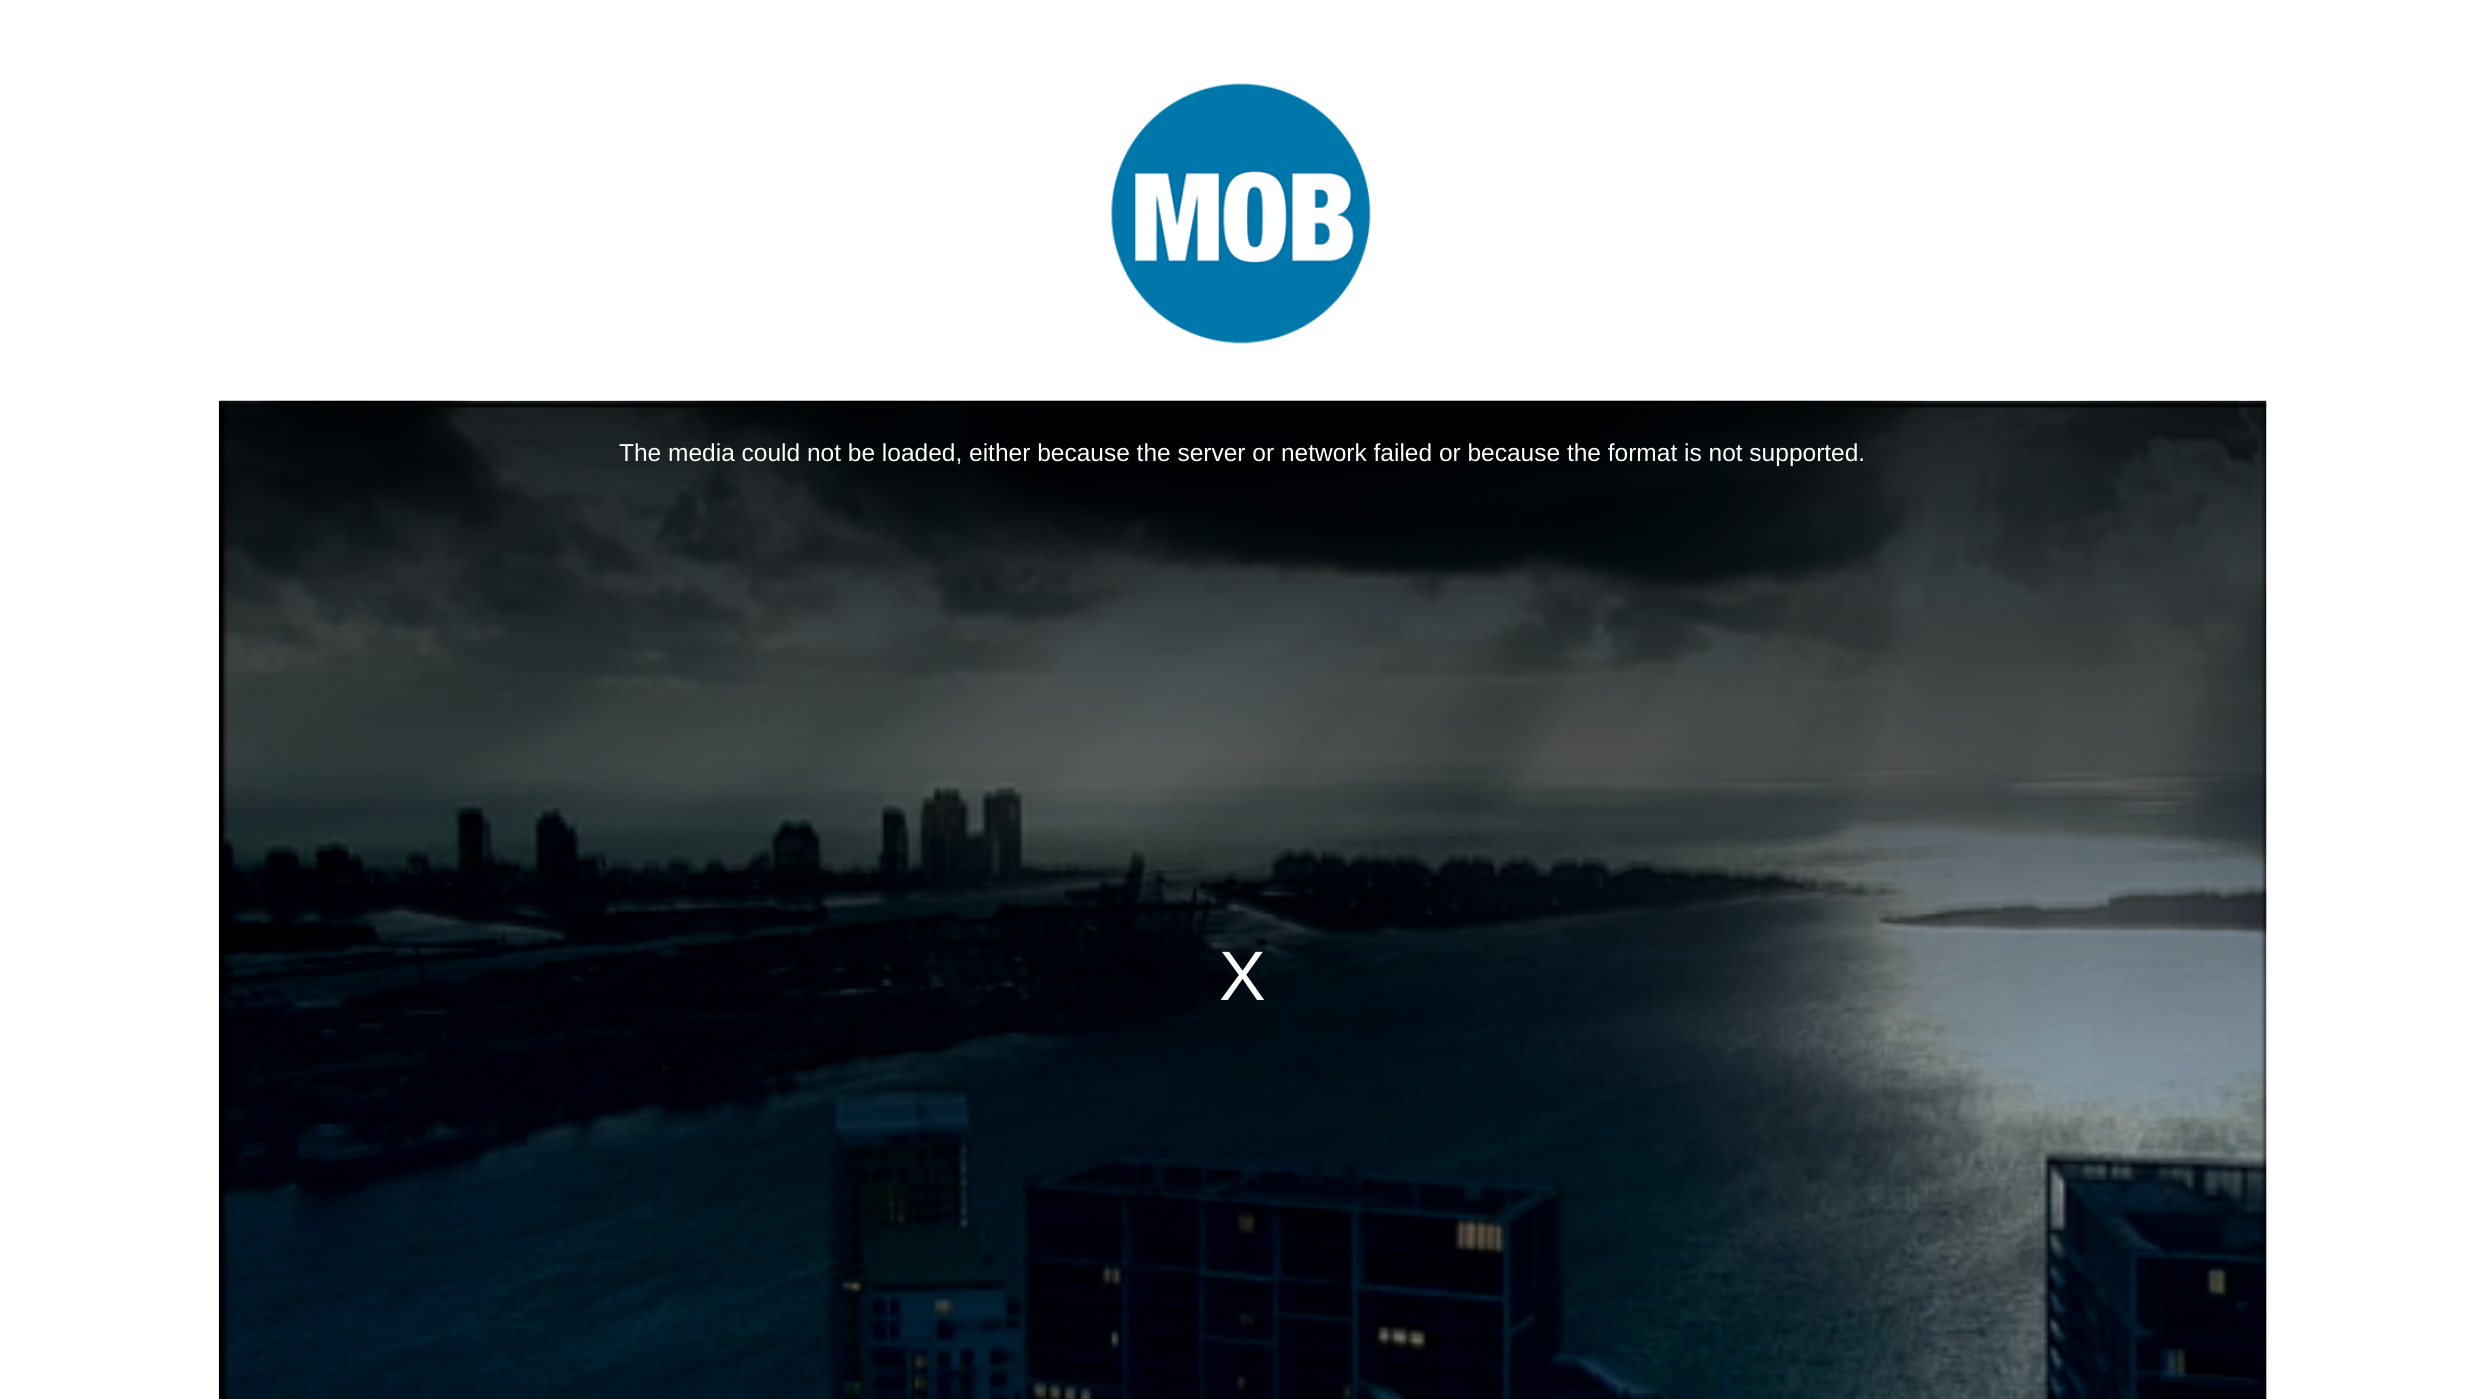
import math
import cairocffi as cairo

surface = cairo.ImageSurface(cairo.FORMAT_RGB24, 2485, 1399)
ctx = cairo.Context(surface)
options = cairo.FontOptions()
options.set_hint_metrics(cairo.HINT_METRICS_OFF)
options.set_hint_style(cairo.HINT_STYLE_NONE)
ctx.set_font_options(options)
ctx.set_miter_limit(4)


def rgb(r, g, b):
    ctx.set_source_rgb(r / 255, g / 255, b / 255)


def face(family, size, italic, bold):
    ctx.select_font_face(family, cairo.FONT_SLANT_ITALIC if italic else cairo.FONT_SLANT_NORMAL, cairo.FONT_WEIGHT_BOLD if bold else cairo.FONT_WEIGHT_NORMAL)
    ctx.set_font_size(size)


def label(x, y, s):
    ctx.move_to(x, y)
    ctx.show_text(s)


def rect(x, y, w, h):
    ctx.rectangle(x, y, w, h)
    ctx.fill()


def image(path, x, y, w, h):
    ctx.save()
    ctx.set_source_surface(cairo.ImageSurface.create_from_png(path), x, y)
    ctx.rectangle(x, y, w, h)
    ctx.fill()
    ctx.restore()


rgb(255, 255, 255)
ctx.paint()
image('image0.png', 1111, 83, 260, 261)
image('image1.png', 218, 400, 2049, 999)
rgb(0, 0, 0)
rect(219, 401, 2, 998)
image('image2.png', 220, 400, 2047, 999)
gradient = cairo.LinearGradient(1243, 401, 1243, 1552)
gradient.add_color_stop_rgba(0, 0, 0, 0, 0.8)
gradient.add_color_stop_rgba(1, 0, 0, 0, 0)
ctx.set_source(gradient)
rect(220, 401, 2046, 998)
face('Liberation Sans', 24.5, 0, 0)
rgb(255, 255, 255)
label(619, 461, 'The media could not be loaded, either because the server or network failed or because the format is not supported.')
face('Liberation Sans', 70, 0, 0)
label(1219, 1000, 'X')
surface.write_to_png('render.png')
